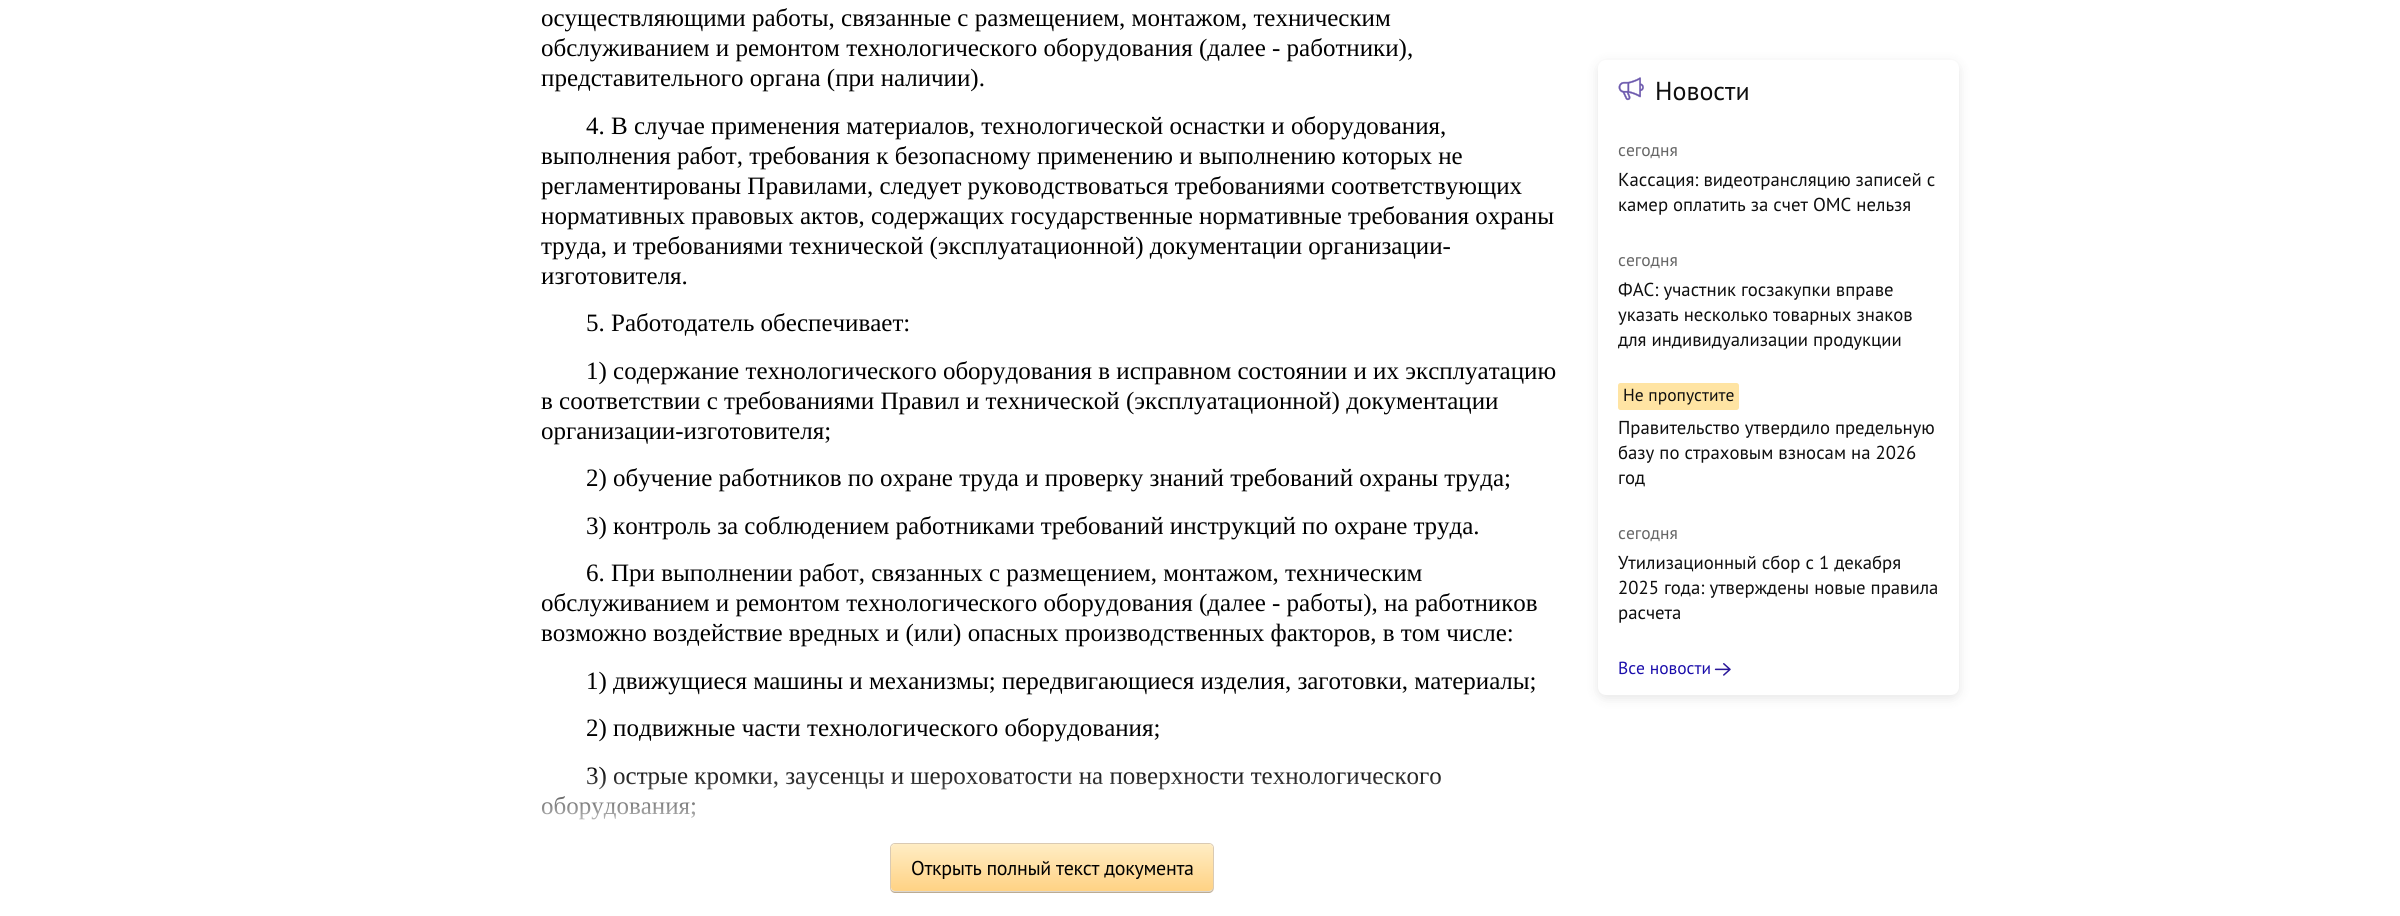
import math
import cairocffi as cairo

surface = cairo.ImageSurface(cairo.FORMAT_RGB24, 2400, 916)
ctx = cairo.Context(surface)
options = cairo.FontOptions()
options.set_hint_metrics(cairo.HINT_METRICS_OFF)
options.set_hint_style(cairo.HINT_STYLE_NONE)
ctx.set_font_options(options)
ctx.set_miter_limit(4)


def rgb(r, g, b):
    ctx.set_source_rgb(r / 255, g / 255, b / 255)


def face(family, size, italic, bold):
    ctx.select_font_face(family, cairo.FONT_SLANT_ITALIC if italic else cairo.FONT_SLANT_NORMAL, cairo.FONT_WEIGHT_BOLD if bold else cairo.FONT_WEIGHT_NORMAL)
    ctx.set_font_size(size)


def label(x, y, s):
    ctx.move_to(x, y)
    ctx.show_text(s)


def tracked(x, y, s, letter, word):
    ctx.move_to(x, y)
    for ch in s:
        ctx.show_text(ch)
        ctx.rel_move_to(letter + word * (ch == ' '), 0)


def rect(x, y, w, h):
    ctx.rectangle(x, y, w, h)
    ctx.fill()


def rrect(x, y, w, h, r):
    ctx.new_sub_path()
    for i, (u, v) in enumerate([(x + w - r, y + h - r), (x + r, y + h - r), (x + r, y + r), (x + w - r, y + r)]):
        ctx.arc(u, v, r, i * math.pi / 2, (i + 1) * math.pi / 2)
    ctx.close_path()


def soft_shadow(x, y, w, h, r, blur, alpha):
    ctx.push_group_with_content(cairo.CONTENT_ALPHA)
    ctx.set_operator(cairo.OPERATOR_SOURCE)
    for i in range(15, -16, -2):
        e = blur * i / 6
        if min(w, h) + 2 * e > 0:
            ctx.set_source_rgba(0, 0, 0, alpha * math.erfc((i - 1) / 8.5) / 2)
            rrect(x - e, y - e, w + 2 * e, h + 2 * e, max(0, min(r + e + blur * .6, min(w, h) / 2 + e)))
            ctx.fill()
    ctx.mask(ctx.pop_group())


def image(path, x, y, w, h):
    ctx.save()
    ctx.set_source_surface(cairo.ImageSurface.create_from_png(path), x, y)
    ctx.rectangle(x, y, w, h)
    ctx.fill()
    ctx.restore()


rgb(255, 255, 255)
ctx.paint()
face('Liberation Serif', 25, 0, 0)
rgb(0, 0, 0)
label(541, 26, 'осуществляющими работы, связанные с размещением, монтажом, техническим')
label(541, 56, 'обслуживанием и ремонтом технологического оборудования (далее - работники),')
label(541, 86, 'представительного органа (при наличии).')
label(586, 134, '4. В случае применения материалов, технологической оснастки и оборудования,')
label(541, 164, 'выполнения работ, требования к безопасному применению и выполнению которых не')
label(541, 194, 'регламентированы Правилами, следует руководствоваться требованиями соответствующих')
label(541, 224, 'нормативных правовых актов, содержащих государственные нормативные требования охраны')
label(541, 254, 'труда, и требованиями технической (эксплуатационной) документации организации-')
label(541, 284, 'изготовителя.')
label(586, 331, '5. Работодатель обеспечивает:')
label(586, 379, '1) содержание технологического оборудования в исправном состоянии и их эксплуатацию')
label(541, 409, 'в соответствии с требованиями Правил и технической (эксплуатационной) документации')
label(541, 439, 'организации-изготовителя;')
label(586, 486, '2) обучение работников по охране труда и проверку знаний требований охраны труда;')
label(586, 534, '3) контроль за соблюдением работниками требований инструкций по охране труда.')
label(586, 581, '6. При выполнении работ, связанных с размещением, монтажом, техническим')
label(541, 611, 'обслуживанием и ремонтом технологического оборудования (далее - работы), на работников')
label(541, 641, 'возможно воздействие вредных и (или) опасных производственных факторов, в том числе:')
label(586, 689, '1) движущиеся машины и механизмы; передвигающиеся изделия, заготовки, материалы;')
label(586, 736, '2) подвижные части технологического оборудования;')
label(586, 784, '3) острые кромки, заусенцы и шероховатости на поверхности технологического')
label(541, 814, 'оборудования;')
gradient = cairo.LinearGradient(1000, 766, 1000, 916)
gradient.add_color_stop_rgba(0, 1, 1, 1, 0)
gradient.add_color_stop_rgba(0.5, 1, 1, 1, 1)
ctx.set_source(gradient)
rect(542, 768, 900, 52)
rrect(890.5, 843.5, 323, 49, 4.5)
rgb(218, 202, 179)
ctx.set_line_width(1)
ctx.stroke()
ctx.set_source_rgba(0.286, 0.192, 0.047, 0.2)
ctx.new_path()
ctx.move_to(891, 848)
ctx.line_to(891, 889)
ctx.curve_to(891, 891, 893, 893, 895, 893)
ctx.line_to(1209, 893)
ctx.curve_to(1211, 893, 1213, 891, 1213, 889)
ctx.line_to(1213, 849)
ctx.line_to(1212, 847)
ctx.line_to(1212, 888)
ctx.curve_to(1212, 890, 1211, 891, 1209, 891)
ctx.line_to(895, 891)
ctx.curve_to(893, 891, 891, 890, 891, 888)
ctx.close_path()
ctx.fill()
gradient = cairo.LinearGradient(1052, 844, 1052, 891)
gradient.add_color_stop_rgba(0, 1, 0.929, 0.769, 1)
gradient.add_color_stop_rgba(0.97, 1, 0.827, 0.525, 1)
ctx.set_source(gradient)
rrect(891, 844, 322, 47, 4)
ctx.fill()
face('PT Sans', 20, 0, 0)
rgb(0, 0, 0)
tracked(911, 875, 'Открыть полный текст документа', -0.3, 0)
rgb(40, 39, 42)
soft_shadow(1598, 63, 361, 635, 8, 6, 0.12)
rgb(255, 255, 255)
rrect(1598, 60, 361, 635, 8)
ctx.fill()
image('image0.png', 1618, 77, 26, 24)
face('PT Sans', 26, 0, 0)
rgb(14, 14, 14)
label(1655, 100, 'Новости')
face('PT Sans', 17.5, 0, 0)
rgb(102, 102, 102)
label(1618, 156, 'сегодня')
face('PT Sans', 18.75, 0, 0)
rgb(14, 14, 14)
label(1618, 186, 'Кассация: видеотрансляцию записей с')
label(1618, 211, 'камер оплатить за счет ОМС нельзя')
face('PT Sans', 17.5, 0, 0)
rgb(102, 102, 102)
label(1618, 266, 'сегодня')
face('PT Sans', 18.75, 0, 0)
rgb(14, 14, 14)
label(1618, 296, 'ФАС: участник госзакупки вправе')
label(1618, 321, 'указать несколько товарных знаков')
label(1618, 346, 'для индивидуализации продукции')
rgb(255, 228, 163)
rrect(1618, 383, 121, 27, 2.5)
ctx.fill()
face('PT Sans', 17.5, 0, 0)
rgb(14, 14, 14)
label(1623, 401, 'Не пропустите')
face('PT Sans', 18.75, 0, 0)
label(1618, 434, 'Правительство утвердило предельную')
label(1618, 459, 'базу по страховым взносам на 2026')
label(1618, 484, 'год')
face('PT Sans', 17.5, 0, 0)
rgb(102, 102, 102)
label(1618, 539, 'сегодня')
face('PT Sans', 18.75, 0, 0)
rgb(14, 14, 14)
label(1618, 569, 'Утилизационный сбор с 1 декабря')
label(1618, 594, '2025 года: утверждены новые правила')
label(1618, 619, 'расчета')
face('PT Sans', 17.5, 0, 0)
rgb(26, 13, 171)
label(1618, 674, 'Все новости')
image('image1.png', 1714, 663, 17, 13)
surface.write_to_png('render.png')
